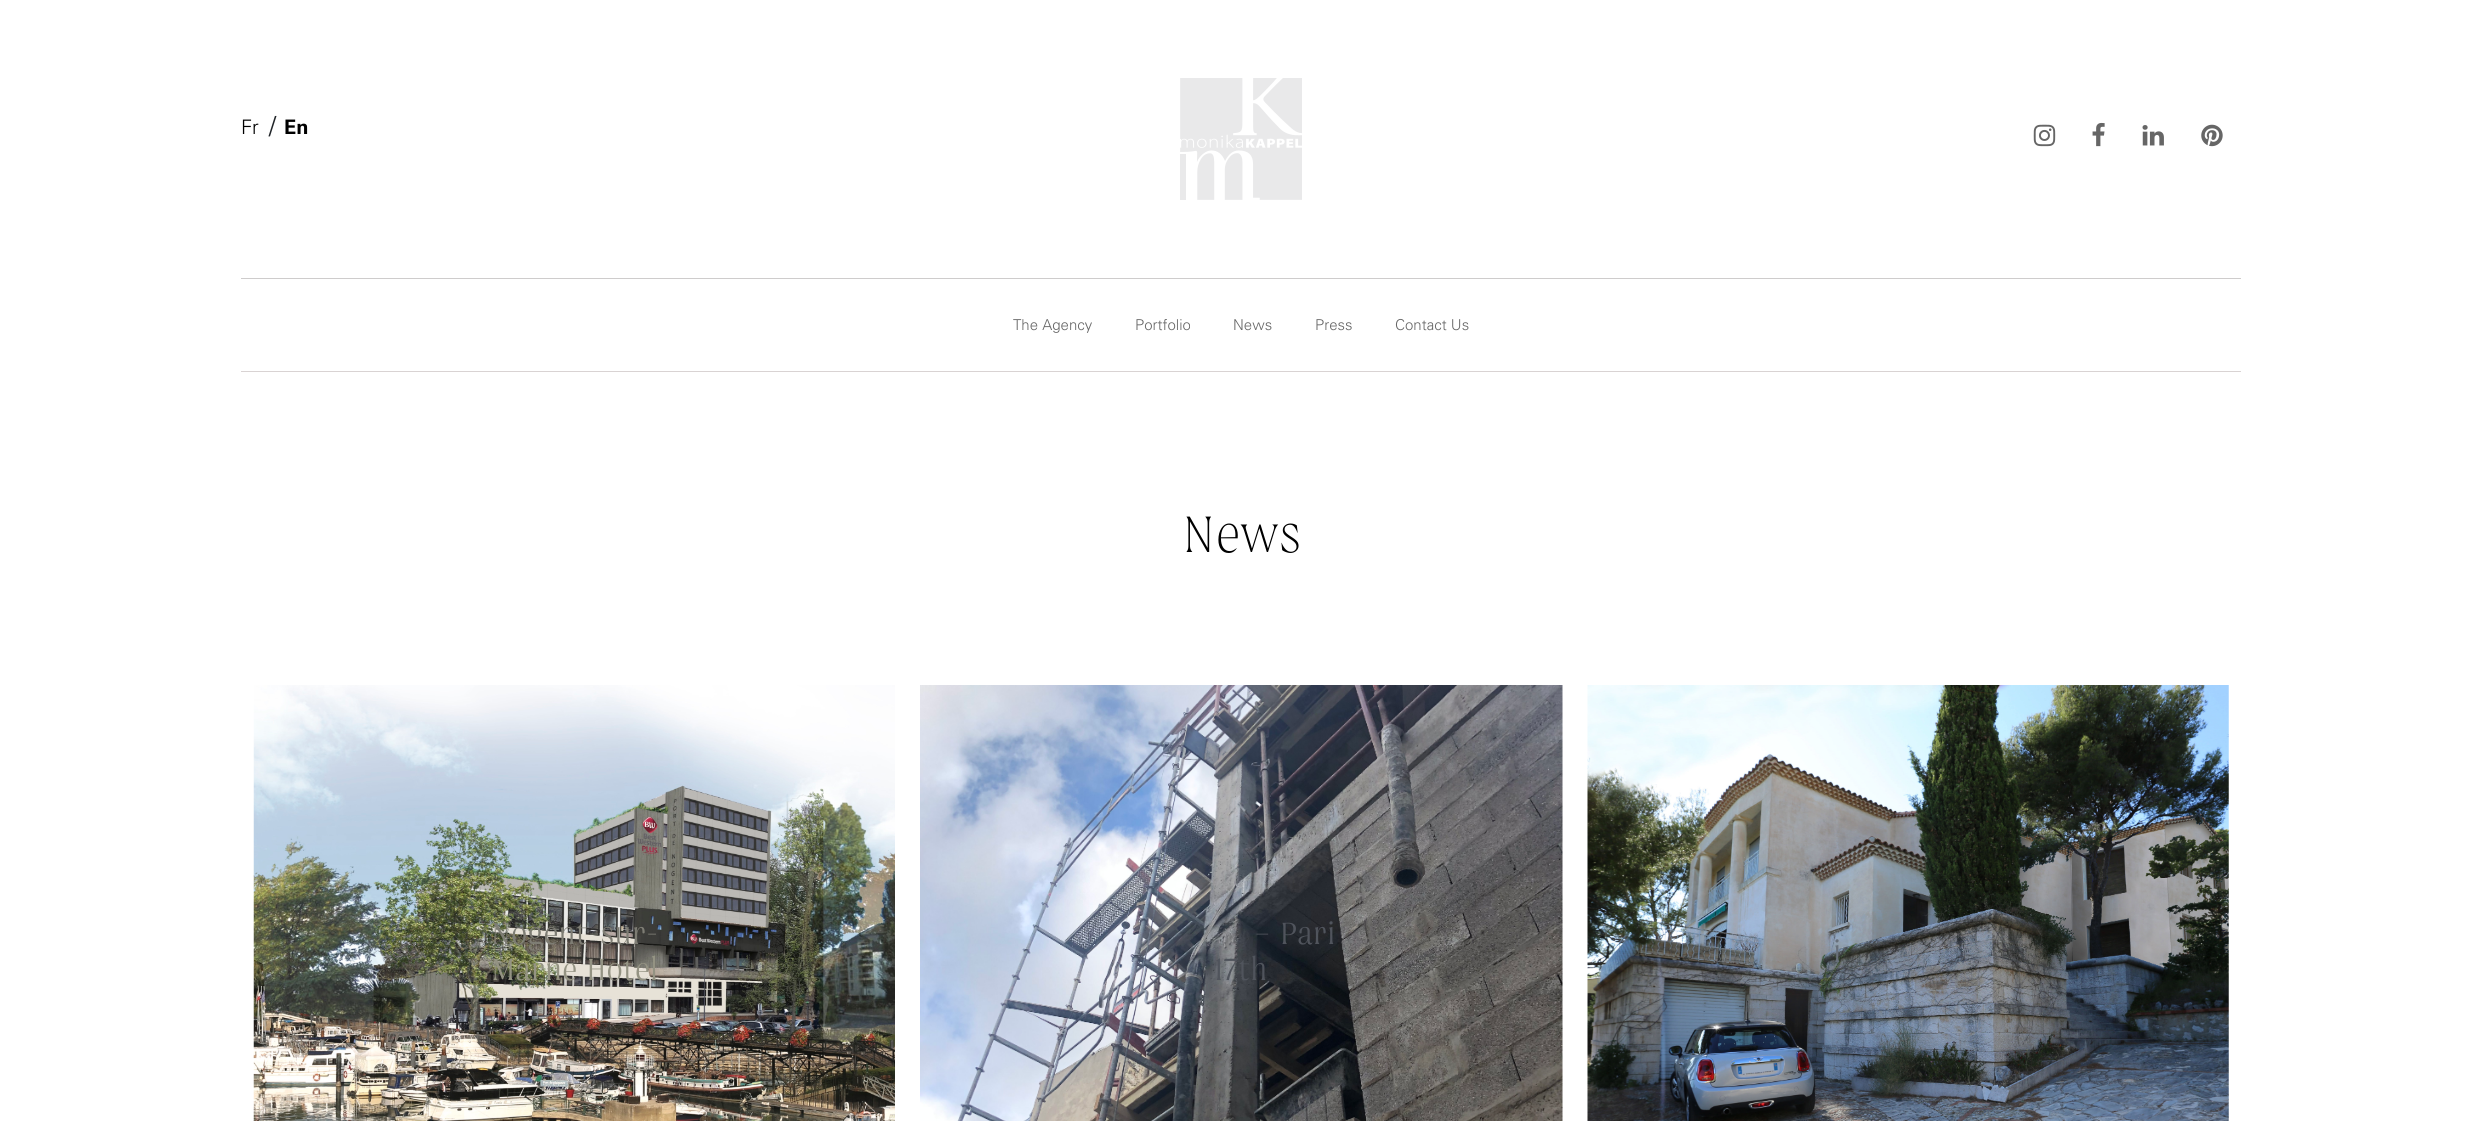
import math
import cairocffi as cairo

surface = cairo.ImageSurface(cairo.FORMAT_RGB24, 2482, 1121)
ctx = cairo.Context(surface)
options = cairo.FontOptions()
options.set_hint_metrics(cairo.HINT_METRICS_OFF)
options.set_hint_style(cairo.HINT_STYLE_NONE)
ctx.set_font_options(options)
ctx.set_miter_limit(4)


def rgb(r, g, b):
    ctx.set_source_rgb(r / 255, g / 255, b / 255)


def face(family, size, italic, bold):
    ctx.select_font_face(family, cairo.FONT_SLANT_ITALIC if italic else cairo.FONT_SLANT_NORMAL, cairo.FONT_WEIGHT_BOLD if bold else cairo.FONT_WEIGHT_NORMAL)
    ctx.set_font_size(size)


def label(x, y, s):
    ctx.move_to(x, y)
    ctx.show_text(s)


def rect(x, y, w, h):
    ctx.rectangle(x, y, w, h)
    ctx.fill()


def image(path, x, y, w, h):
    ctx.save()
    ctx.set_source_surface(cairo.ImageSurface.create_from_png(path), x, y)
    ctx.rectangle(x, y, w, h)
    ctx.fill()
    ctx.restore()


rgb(255, 255, 255)
ctx.paint()
face('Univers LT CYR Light', 20, 0, 0)
rgb(0, 0, 0)
label(241, 134, 'Fr')
face('Univers LT CYR Light', 25, 0, 0)
rgb(33, 37, 41)
label(269, 134, '/')
face('Univers LT CYR', 20, 0, 1)
rgb(0, 0, 0)
label(284, 134, 'En')
image('image0.png', 1180, 78, 122, 122)
image('image1.png', 2033, 124, 23, 23)
image('image2.png', 2092, 122, 13, 25)
image('image3.png', 2142, 125, 22, 21)
image('image4.png', 2201, 124, 22, 23)
rgb(206, 204, 204)
rect(241, 278, 2000, 1)
rgb(217, 211, 211)
rect(241, 371, 2000, 1)
face('Univers LT CYR Light', 15, 0, 0)
rgb(102, 102, 102)
label(1013, 330, 'The Agency')
label(1135, 330, 'Portfolio')
label(1233, 330, 'News')
label(1315, 330, 'Press')
label(1395, 330, 'Contact Us')
face('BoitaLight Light', 50, 0, 0)
rgb(0, 0, 0)
label(1182, 552, 'News')
image('image5.png', 253, 685, 642, 436)
face('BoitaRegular', 30, 0, 0)
rgb(126, 125, 116)
label(491, 944, 'Nogent-sur-')
rgb(148, 147, 131)
label(491, 980, 'Marne Hotel')
image('image6.png', 920, 685, 643, 436)
rgb(80, 84, 92)
label(1254, 944, '– Pari')
label(1214, 980, '17th')
image('image7.png', 1587, 685, 642, 436)
rgb(104, 112, 122)
label(1833, 962, 'i')
surface.write_to_png('render.png')
